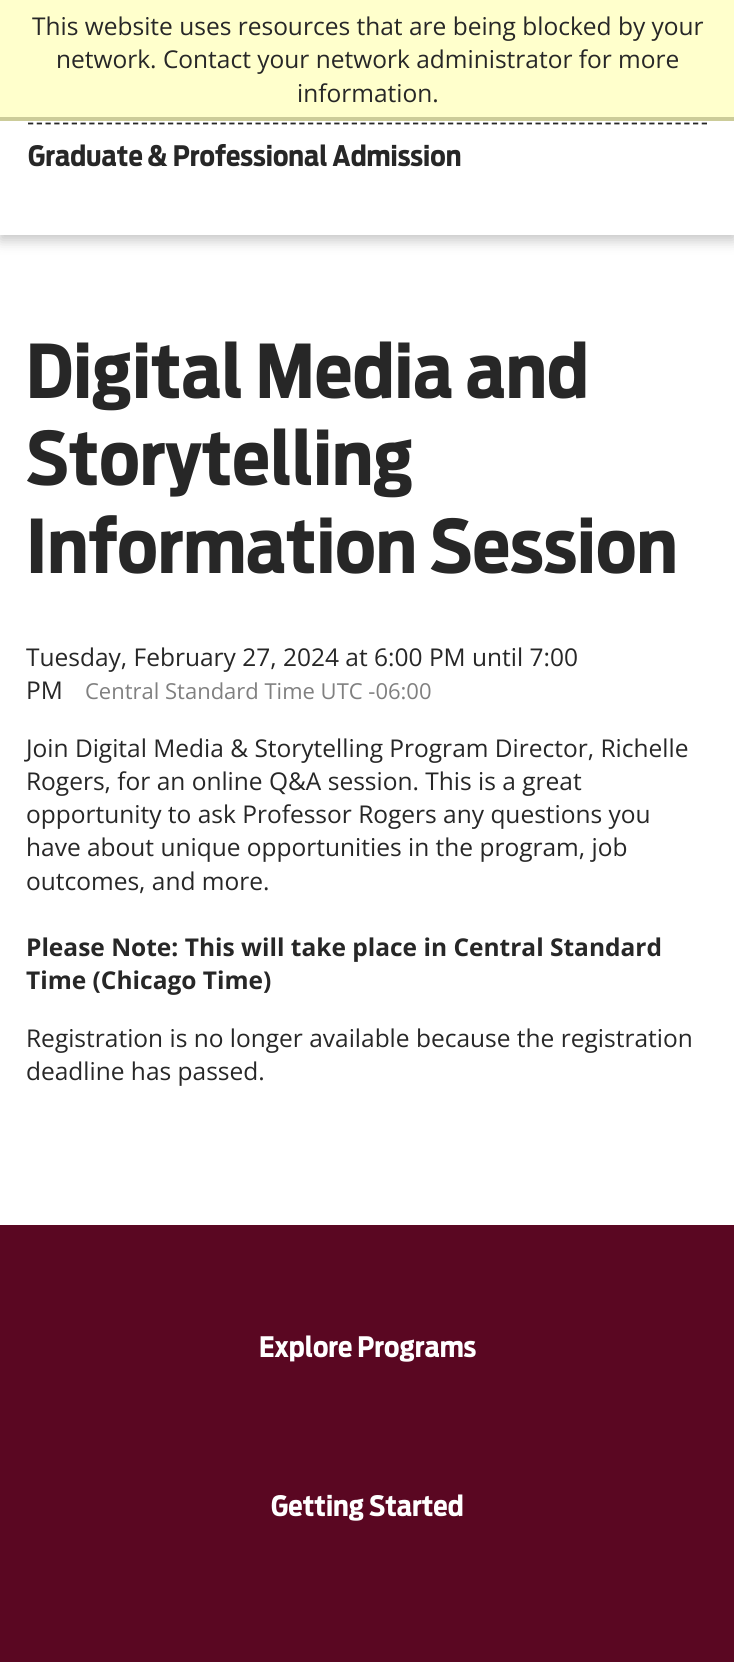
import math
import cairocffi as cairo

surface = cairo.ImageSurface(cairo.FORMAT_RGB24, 734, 1662)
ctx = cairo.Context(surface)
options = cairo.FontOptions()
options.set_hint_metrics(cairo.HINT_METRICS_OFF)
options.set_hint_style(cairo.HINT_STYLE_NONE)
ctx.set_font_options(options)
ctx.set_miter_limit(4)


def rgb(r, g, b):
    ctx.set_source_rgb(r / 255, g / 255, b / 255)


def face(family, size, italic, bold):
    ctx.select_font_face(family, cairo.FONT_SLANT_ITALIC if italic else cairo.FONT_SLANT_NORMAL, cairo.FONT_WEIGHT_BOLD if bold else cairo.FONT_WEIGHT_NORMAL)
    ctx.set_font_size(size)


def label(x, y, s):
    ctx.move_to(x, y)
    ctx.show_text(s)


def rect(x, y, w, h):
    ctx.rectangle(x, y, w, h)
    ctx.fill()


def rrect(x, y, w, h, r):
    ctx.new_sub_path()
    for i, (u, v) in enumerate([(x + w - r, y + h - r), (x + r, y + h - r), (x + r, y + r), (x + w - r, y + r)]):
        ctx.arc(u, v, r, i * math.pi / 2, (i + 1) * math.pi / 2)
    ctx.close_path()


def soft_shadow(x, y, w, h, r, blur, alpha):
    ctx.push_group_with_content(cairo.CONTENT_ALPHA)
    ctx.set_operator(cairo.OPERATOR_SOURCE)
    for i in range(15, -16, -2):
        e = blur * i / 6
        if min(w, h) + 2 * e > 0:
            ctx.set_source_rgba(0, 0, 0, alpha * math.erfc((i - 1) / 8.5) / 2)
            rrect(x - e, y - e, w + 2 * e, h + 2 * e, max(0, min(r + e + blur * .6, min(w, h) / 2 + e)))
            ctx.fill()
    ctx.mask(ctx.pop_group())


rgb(255, 255, 255)
ctx.paint()
rgb(0, 0, 0)
soft_shadow(0, 5, 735, 235, 0, 7, 0.24)
rgb(255, 255, 204)
rect(0, 0, 734, 117)
rgb(204, 204, 153)
rect(0, 117, 734, 4)
face('Open Sans', 24.5, 0, 0)
rgb(39, 39, 39)
label(32, 35, 'This website uses resources that are being blocked by your')
label(56, 68, 'network. Contact your network administrator for more')
label(297, 102, 'information.')
rgb(255, 255, 255)
rect(0, 121, 734, 114)
ctx.new_path()
ctx.move_to(28, 123.5)
ctx.line_to(707, 123.5)
rgb(39, 39, 39)
ctx.set_line_width(1.8)
ctx.set_dash([5.25, 3.5])
ctx.stroke()
face('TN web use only', 28, 0, 1)
label(28, 166, 'Graduate & Professional Admission')
face('TN web use only', 73.5, 0, 1)
label(26, 398, 'Digital Media and')
label(26, 485, 'Storytelling')
label(26, 573, 'Information Session')
face('Open Sans', 24.5, 0, 0)
label(26, 666, 'Tuesday, February 27, 2024 at 6:00 PM until 7:00')
label(26, 699, 'PM')
face('Open Sans', 22, 0, 0)
rgb(128, 128, 128)
label(85, 699, 'Central Standard Time UTC -06:00')
face('Open Sans', 24.5, 0, 0)
rgb(39, 39, 39)
label(26, 757, 'Join Digital Media & Storytelling Program Director, Richelle')
label(26, 790, 'Rogers, for an online Q&A session. This is a great')
label(26, 823, 'opportunity to ask Professor Rogers any questions you')
label(26, 856, 'have about unique opportunities in the program, job')
label(26, 890, 'outcomes, and more.')
face('Open Sans', 24.5, 0, 1)
label(26, 956, 'Please Note: This will take place in Central Standard')
label(26, 989, 'Time (Chicago Time)')
face('Open Sans', 24.5, 0, 0)
label(26, 1047, 'Registration is no longer available because the registration')
label(26, 1080, 'deadline has passed.')
rgb(90, 7, 34)
rect(0, 1225, 734, 437)
face('TN web use only', 28, 0, 1)
rgb(255, 255, 255)
label(259, 1357, 'Explore Programs')
label(271, 1516, 'Getting Started')
surface.write_to_png('render.png')
